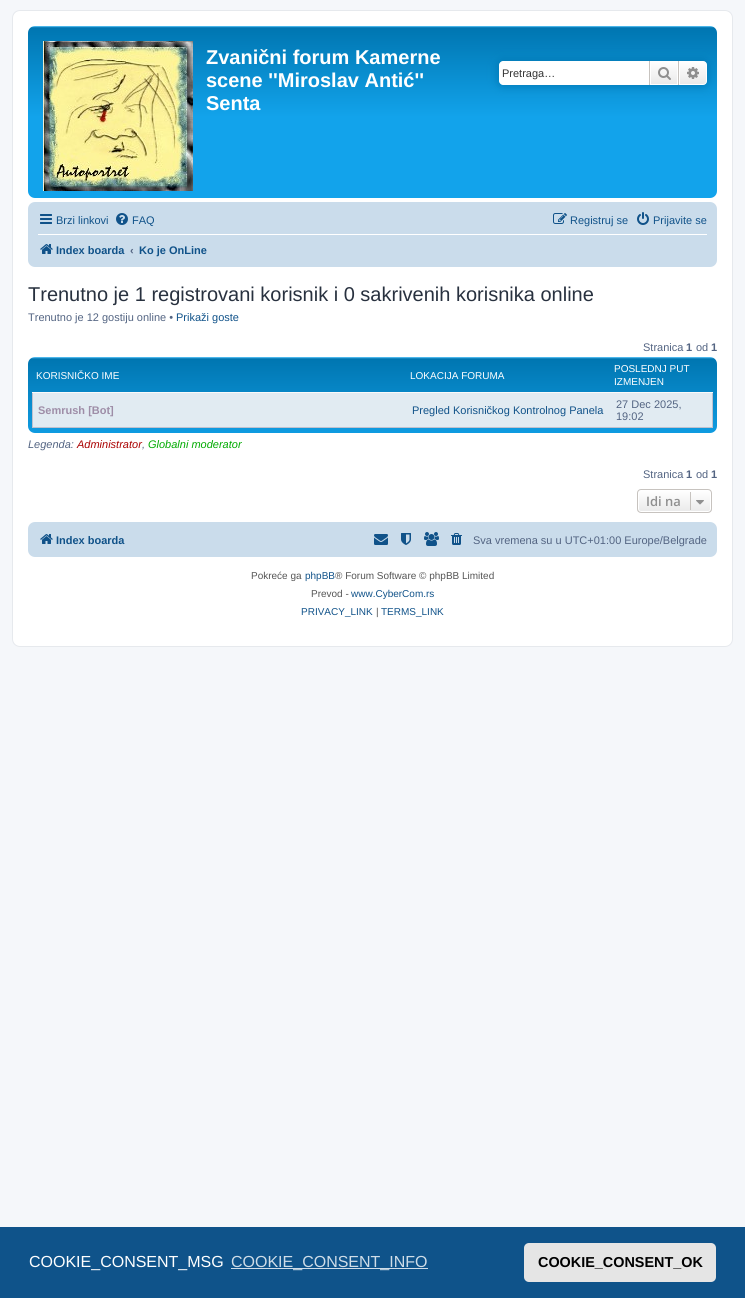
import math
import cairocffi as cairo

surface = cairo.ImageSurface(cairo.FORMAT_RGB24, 745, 1298)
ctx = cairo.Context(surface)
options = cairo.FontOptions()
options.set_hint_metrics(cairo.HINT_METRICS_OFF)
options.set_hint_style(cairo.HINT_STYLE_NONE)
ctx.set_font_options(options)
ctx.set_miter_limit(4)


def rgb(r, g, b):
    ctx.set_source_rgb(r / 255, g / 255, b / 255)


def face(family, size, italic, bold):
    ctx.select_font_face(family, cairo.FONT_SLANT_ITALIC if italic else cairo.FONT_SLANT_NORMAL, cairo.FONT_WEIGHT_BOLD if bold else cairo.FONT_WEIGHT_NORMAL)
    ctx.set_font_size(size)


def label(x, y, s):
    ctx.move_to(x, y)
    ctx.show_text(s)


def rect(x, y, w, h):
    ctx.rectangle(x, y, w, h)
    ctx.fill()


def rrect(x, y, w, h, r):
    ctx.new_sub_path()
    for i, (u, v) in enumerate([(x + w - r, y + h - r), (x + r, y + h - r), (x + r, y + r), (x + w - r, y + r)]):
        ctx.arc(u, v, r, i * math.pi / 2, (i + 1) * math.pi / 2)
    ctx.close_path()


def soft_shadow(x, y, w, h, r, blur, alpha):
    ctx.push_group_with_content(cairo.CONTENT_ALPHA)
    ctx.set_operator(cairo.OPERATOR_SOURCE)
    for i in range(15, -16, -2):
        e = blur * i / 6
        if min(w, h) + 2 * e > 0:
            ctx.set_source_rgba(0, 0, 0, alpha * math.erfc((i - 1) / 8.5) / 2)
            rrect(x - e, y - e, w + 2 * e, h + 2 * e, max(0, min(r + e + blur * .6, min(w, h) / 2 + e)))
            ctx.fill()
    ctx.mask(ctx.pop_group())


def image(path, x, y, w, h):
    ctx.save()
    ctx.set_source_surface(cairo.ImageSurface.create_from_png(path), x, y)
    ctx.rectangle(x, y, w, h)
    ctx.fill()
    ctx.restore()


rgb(245, 247, 250)
ctx.paint()
rgb(255, 255, 255)
rrect(12.5, 10.5, 720, 636, 7.5)
ctx.fill_preserve()
rgb(230, 233, 237)
ctx.set_line_width(1)
ctx.stroke()
gradient = cairo.LinearGradient(373, 26, 373, 198)
gradient.add_color_stop_rgba(0, 0.416, 0.808, 1, 1)
gradient.add_color_stop_rgba(0.01, 0, 0.463, 0.694, 1)
gradient.add_color_stop_rgba(0.53, 0.071, 0.639, 0.922, 1)
gradient.add_color_stop_rgba(1, 0.071, 0.639, 0.922, 1)
ctx.set_source(gradient)
rrect(28, 26, 689, 172, 7)
ctx.fill()
image('image0.png', 43, 41, 150, 150)
face('Liberation Sans', 20, 0, 1)
rgb(255, 255, 255)
label(206, 64, 'Zvanični forum Kamerne')
label(206, 87, 'scene \'\'Miroslav Antić\'\'')
label(206, 110, 'Senta')
rgb(0, 117, 176)
soft_shadow(499, 61, 208, 24, 4, 5, 1)
rgb(255, 255, 255)
ctx.new_path()
ctx.move_to(503, 61)
ctx.line_to(649, 61)
ctx.line_to(649, 85)
ctx.line_to(503, 85)
ctx.curve_to(501, 85, 499, 83, 499, 81)
ctx.line_to(499, 65)
ctx.curve_to(499, 63, 501, 61, 503, 61)
ctx.close_path()
ctx.fill()
face('Liberation Sans', 11, 0, 0)
rgb(51, 51, 51)
label(502, 77, 'Pretraga…')
gradient = cairo.LinearGradient(664, 61, 664, 85)
gradient.add_color_stop_rgba(0, 1, 1, 1, 1)
gradient.add_color_stop_rgba(1, 0.914, 0.914, 0.914, 1)
ctx.set_source(gradient)
rect(651, 62, 26, 22)
ctx.rectangle(650.5, 61.5, 27, 23)
rgb(255, 255, 255)
ctx.stroke()
rgb(199, 195, 191)
rect(678, 61, 1, 24)
rect(649, 61, 1, 24)
image('image1.png', 658, 67, 13, 13)
gradient = cairo.LinearGradient(693, 61, 693, 85)
gradient.add_color_stop_rgba(0, 1, 1, 1, 1)
gradient.add_color_stop_rgba(1, 0.914, 0.914, 0.914, 1)
ctx.set_source(gradient)
ctx.new_path()
ctx.move_to(679.5, 61.5)
ctx.line_to(703, 61.5)
ctx.curve_to(705, 61.5, 706.5, 63, 706.5, 65)
ctx.line_to(706.5, 81)
ctx.curve_to(706.5, 83, 705, 84.5, 703, 84.5)
ctx.line_to(679.5, 84.5)
ctx.close_path()
ctx.fill_preserve()
rgb(255, 255, 255)
ctx.stroke()
image('image2.png', 687, 67, 12, 12)
rgb(202, 220, 235)
rrect(28, 202, 689, 65, 7)
ctx.fill()
image('image3.png', 40, 214, 12, 10)
rgb(16, 82, 137)
label(56, 224, 'Brzi linkovi')
image('image4.png', 116, 213, 12, 12)
label(132, 224, 'FAQ')
image('image5.png', 553, 213, 14, 11)
label(570, 224, 'Registruj se')
image('image6.png', 637, 212, 12, 13)
label(653, 224, 'Prijavite se')
rgb(255, 255, 255)
rect(38, 234, 669, 1)
image('image7.png', 40, 244, 13, 10)
face('Liberation Sans', 11, 0, 1)
rgb(16, 82, 137)
label(56, 254, 'Index boarda')
rgb(83, 100, 130)
label(130, 254, '‹')
rgb(16, 82, 137)
label(139, 254, 'Ko je OnLine')
face('Liberation Sans', 20, 0, 0)
rgb(40, 49, 63)
label(28, 301, 'Trenutno je 1 registrovani korisnik i 0 sakrivenih korisnika online')
face('Liberation Sans', 11, 0, 0)
rgb(83, 100, 130)
label(28, 321, 'Trenutno je 12 gostiju online •')
rgb(16, 82, 137)
label(176, 321, 'Prikaži goste')
rgb(83, 100, 130)
label(643, 351, 'Stranica')
face('Liberation Sans', 11, 0, 1)
label(686, 351, '1')
face('Liberation Sans', 11, 0, 0)
label(696, 351, 'od')
face('Liberation Sans', 11, 0, 1)
label(711, 351, '1')
gradient = cairo.LinearGradient(373, 357, 373, 449)
gradient.add_color_stop_rgba(0, 0.416, 0.808, 1, 1)
gradient.add_color_stop_rgba(0.02, 0, 0.463, 0.694, 1)
gradient.add_color_stop_rgba(1, 0.071, 0.639, 0.922, 1)
ctx.set_source(gradient)
rrect(28, 357, 689, 76, 7)
ctx.fill()
face('Liberation Sans', 10, 0, 0)
rgb(255, 255, 255)
label(36, 379, 'KORISNIČKO IME')
label(410, 379, 'LOKACIJA FORUMA')
label(614, 372, 'POSLEDNJ PUT')
label(614, 385, 'IZMENJEN')
rgb(225, 235, 242)
rect(33, 393, 679, 34)
rgb(191, 193, 207)
rect(712, 392, 1, 36)
rect(32, 427, 681, 1)
rect(32, 392, 1, 36)
face('Liberation Sans', 11, 0, 1)
rgb(158, 141, 167)
label(38, 414, 'Semrush [Bot]')
face('Liberation Sans', 11, 0, 0)
rgb(16, 82, 137)
label(412, 414, 'Pregled Korisničkog Kontrolnog Panela')
rgb(250, 250, 250)
rect(32, 392, 681, 1)
rgb(83, 100, 130)
label(616, 408, '27 Dec 2025,')
label(616, 420, '19:02')
face('Liberation Sans', 11, 1, 0)
label(28, 448, 'Legenda:')
rgb(170, 0, 0)
label(77, 448, 'Administrator')
rgb(0, 170, 0)
label(148, 448, 'Globalni moderator')
rgb(83, 100, 130)
label(142, 448, ',')
face('Liberation Sans', 11, 0, 0)
label(643, 478, 'Stranica')
face('Liberation Sans', 11, 0, 1)
label(686, 478, '1')
face('Liberation Sans', 11, 0, 0)
label(696, 478, 'od')
face('Liberation Sans', 11, 0, 1)
label(711, 478, '1')
ctx.save()
rrect(637, 489, 75, 24, 4)
ctx.clip()
gradient = cairo.LinearGradient(675, 490, 675, 512)
gradient.add_color_stop_rgba(0, 1, 1, 1, 1)
gradient.add_color_stop_rgba(1, 0.914, 0.914, 0.914, 1)
ctx.set_source(gradient)
rect(637, 490, 75, 22)
ctx.restore()
rrect(638.5, 490.5, 72, 21, 2.5)
rgb(255, 255, 255)
ctx.stroke()
rrect(637.5, 489.5, 74, 23, 3.5)
rgb(199, 195, 191)
ctx.stroke()
face('Open Sans SemiBold', 13, 0, 0)
rgb(143, 143, 143)
label(646, 506, 'Idi na')
rgb(199, 195, 191)
rect(690, 492, 1, 18)
image('image8.png', 696, 500, 8, 5)
rgb(202, 220, 235)
rrect(28, 522, 689, 35, 7)
ctx.fill()
image('image7.png', 40, 534, 13, 10)
face('Liberation Sans', 11, 0, 1)
rgb(16, 82, 137)
label(56, 544, 'Index boarda')
image('image9.png', 374, 534, 14, 11)
image('image10.png', 401, 533, 10, 12)
image('image11.png', 424, 532, 15, 14)
image('image12.png', 451, 533, 11, 12)
face('Liberation Sans', 11, 0, 0)
rgb(83, 100, 130)
label(473, 544, 'Sva vremena su u UTC+01:00 Europe/Belgrade')
face('Liberation Sans', 10, 0, 0)
rgb(85, 85, 85)
label(251, 579, 'Pokreće ga')
rgb(16, 82, 137)
label(305, 579, 'phpBB')
rgb(85, 85, 85)
label(335, 579, '® Forum Software © phpBB Limited')
label(311, 597, 'Prevod -')
rgb(16, 82, 137)
label(351, 597, 'www.CyberCom.rs')
label(301, 615, 'PRIVACY_LINK')
rgb(85, 85, 85)
label(376, 615, '|')
rgb(16, 82, 137)
label(381, 615, 'TERMS_LINK')
rgb(15, 83, 138)
rect(0, 1227, 745, 71)
face('Liberation Sans', 16, 0, 0)
rgb(255, 255, 255)
label(29, 1267, 'COOKIE_CONSENT_MSG')
rgb(207, 221, 232)
rect(231, 1268, 197, 1)
label(231, 1267, 'COOKIE_CONSENT_INFO')
rgb(229, 229, 229)
rrect(524, 1243, 192, 39, 5)
ctx.fill()
face('Liberation Sans', 14.4, 0, 1)
rgb(0, 0, 0)
label(538, 1267, 'COOKIE_CONSENT_OK')
surface.write_to_png('render.png')
